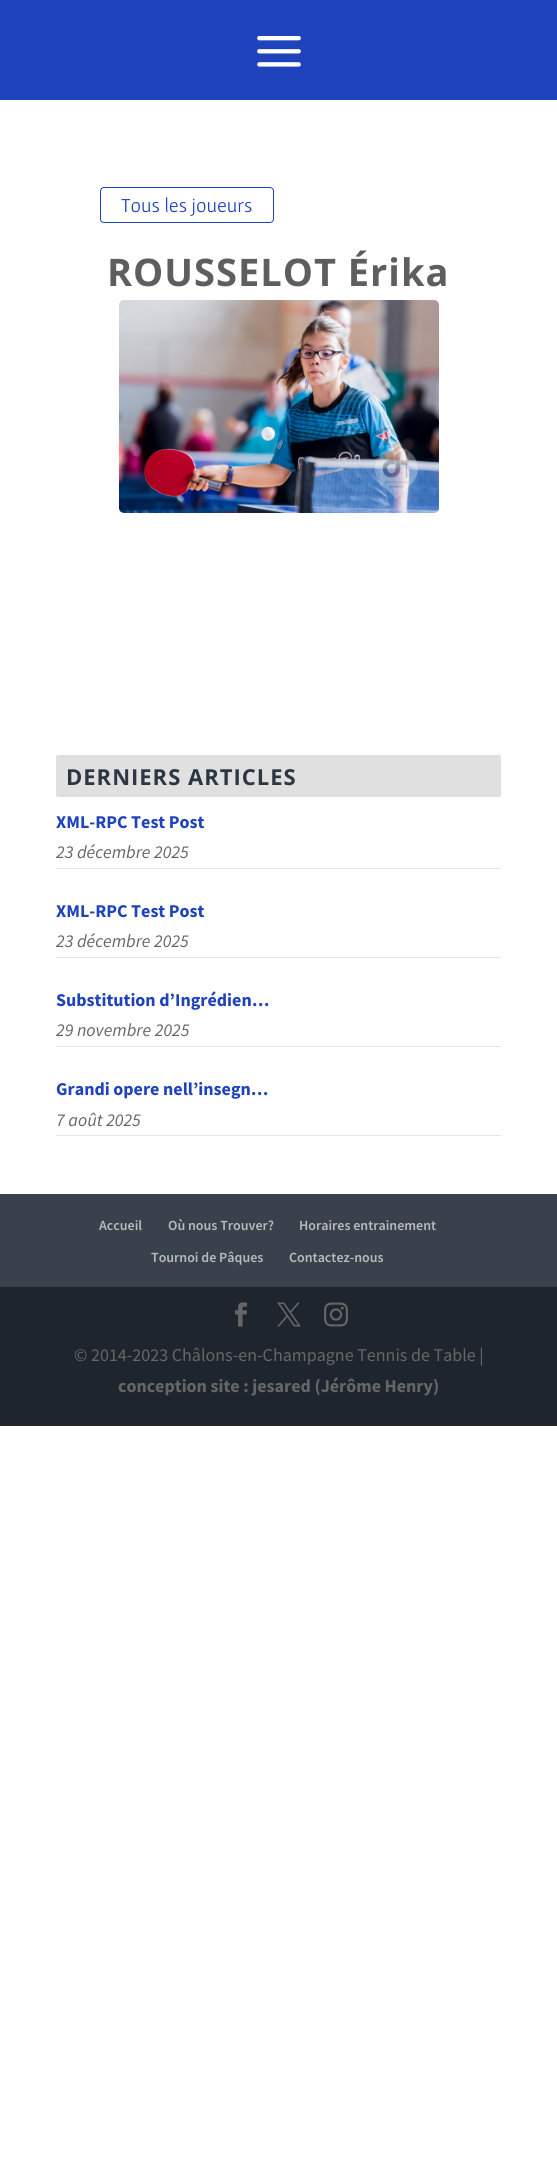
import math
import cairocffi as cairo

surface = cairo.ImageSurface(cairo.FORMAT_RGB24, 557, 2170)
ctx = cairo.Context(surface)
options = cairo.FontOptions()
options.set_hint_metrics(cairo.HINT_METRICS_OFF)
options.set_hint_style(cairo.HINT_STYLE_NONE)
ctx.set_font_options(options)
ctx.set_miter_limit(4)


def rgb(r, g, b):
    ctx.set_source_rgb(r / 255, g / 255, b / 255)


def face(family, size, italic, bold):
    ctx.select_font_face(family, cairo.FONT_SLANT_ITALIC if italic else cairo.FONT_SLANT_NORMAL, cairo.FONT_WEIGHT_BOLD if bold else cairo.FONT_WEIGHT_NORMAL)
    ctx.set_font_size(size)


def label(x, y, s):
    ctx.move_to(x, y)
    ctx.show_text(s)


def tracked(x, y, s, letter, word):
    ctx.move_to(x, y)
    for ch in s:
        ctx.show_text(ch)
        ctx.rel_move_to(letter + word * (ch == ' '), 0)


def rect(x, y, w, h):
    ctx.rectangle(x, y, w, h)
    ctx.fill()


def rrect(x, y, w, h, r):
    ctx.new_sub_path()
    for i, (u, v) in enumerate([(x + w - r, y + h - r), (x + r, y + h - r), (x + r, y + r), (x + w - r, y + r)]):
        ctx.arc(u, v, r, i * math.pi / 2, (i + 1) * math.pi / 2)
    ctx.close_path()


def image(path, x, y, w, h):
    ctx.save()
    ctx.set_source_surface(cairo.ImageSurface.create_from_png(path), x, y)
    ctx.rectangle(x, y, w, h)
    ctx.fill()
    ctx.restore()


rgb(255, 255, 255)
ctx.paint()
rgb(30, 67, 188)
rect(0, 0, 557, 100)
image('image0.png', 257, 36, 44, 31)
rrect(100.5, 187.5, 173, 35, 3.5)
ctx.set_line_width(1)
ctx.stroke()
face('Gafata', 20, 0, 0)
label(121, 212, 'Tous les joueurs')
face('Open Sans', 38, 0, 1)
rgb(94, 94, 94)
tracked(107, 286, 'ROUSSELOT Érika', 1, 0)
image('image1.png', 119, 300, 320, 213)
rgb(224, 224, 224)
rrect(56, 755, 445, 42, 2)
ctx.fill()
face('Open Sans', 22, 0, 1)
rgb(45, 55, 67)
tracked(66, 785, 'DERNIERS ARTICLES', 1, 0)
rgb(230, 230, 230)
rect(56, 868, 445, 1)
face('Source Sans Pro', 18, 0, 1)
rgb(30, 67, 188)
label(56, 828, 'XML-RPC Test Post')
face('Source Sans Pro', 18, 1, 0)
rgb(102, 102, 102)
label(56, 858, '23 décembre 2025')
rgb(230, 230, 230)
rect(56, 957, 445, 1)
face('Source Sans Pro', 18, 0, 1)
rgb(30, 67, 188)
label(56, 917, 'XML-RPC Test Post')
face('Source Sans Pro', 18, 1, 0)
rgb(102, 102, 102)
label(56, 947, '23 décembre 2025')
rgb(230, 230, 230)
rect(56, 1046, 445, 1)
face('Source Sans Pro', 18, 0, 1)
rgb(30, 67, 188)
label(56, 1006, 'Substitution d’Ingrédien…')
face('Source Sans Pro', 18, 1, 0)
rgb(102, 102, 102)
label(56, 1036, '29 novembre 2025')
rgb(230, 230, 230)
rect(56, 1135, 445, 1)
face('Source Sans Pro', 18, 0, 1)
rgb(30, 67, 188)
label(56, 1095, 'Grandi opere nell’insegn…')
face('Source Sans Pro', 18, 1, 0)
rgb(102, 102, 102)
label(56, 1126, '7 août 2025')
rgb(56, 65, 76)
rect(0, 1194, 557, 93)
face('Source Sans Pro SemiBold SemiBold', 14, 0, 0)
rgb(187, 187, 187)
label(99, 1230, 'Accueil')
label(168, 1230, 'Où nous Trouver?')
label(299, 1230, 'Horaires entrainement')
label(151, 1262, 'Tournoi de Pâques')
label(289, 1262, 'Contactez-nous')
rgb(31, 37, 46)
rect(0, 1287, 557, 139)
image('image2.png', 235, 1302, 12, 25)
image('image3.png', 277, 1302, 24, 25)
image('image4.png', 324, 1302, 24, 25)
face('Source Sans Pro', 18, 0, 0)
rgb(102, 102, 102)
label(74, 1361, '© 2014-2023 Châlons-en-Champagne Tennis de Table |')
face('Source Sans Pro', 18, 0, 1)
label(118, 1392, 'conception site : jesared (Jérôme Henry)')
surface.write_to_png('render.png')
